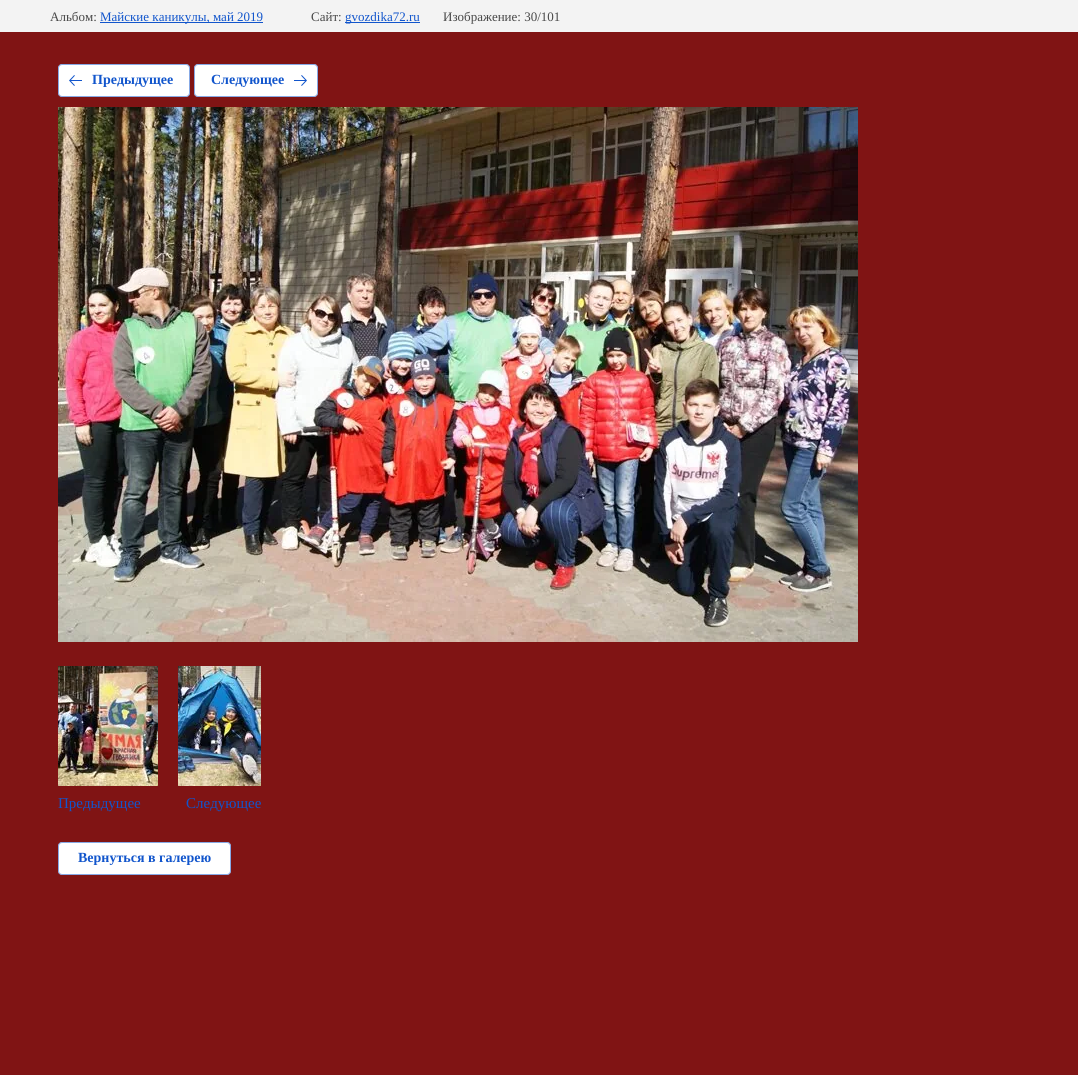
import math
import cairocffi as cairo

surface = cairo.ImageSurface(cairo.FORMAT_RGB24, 1078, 1075)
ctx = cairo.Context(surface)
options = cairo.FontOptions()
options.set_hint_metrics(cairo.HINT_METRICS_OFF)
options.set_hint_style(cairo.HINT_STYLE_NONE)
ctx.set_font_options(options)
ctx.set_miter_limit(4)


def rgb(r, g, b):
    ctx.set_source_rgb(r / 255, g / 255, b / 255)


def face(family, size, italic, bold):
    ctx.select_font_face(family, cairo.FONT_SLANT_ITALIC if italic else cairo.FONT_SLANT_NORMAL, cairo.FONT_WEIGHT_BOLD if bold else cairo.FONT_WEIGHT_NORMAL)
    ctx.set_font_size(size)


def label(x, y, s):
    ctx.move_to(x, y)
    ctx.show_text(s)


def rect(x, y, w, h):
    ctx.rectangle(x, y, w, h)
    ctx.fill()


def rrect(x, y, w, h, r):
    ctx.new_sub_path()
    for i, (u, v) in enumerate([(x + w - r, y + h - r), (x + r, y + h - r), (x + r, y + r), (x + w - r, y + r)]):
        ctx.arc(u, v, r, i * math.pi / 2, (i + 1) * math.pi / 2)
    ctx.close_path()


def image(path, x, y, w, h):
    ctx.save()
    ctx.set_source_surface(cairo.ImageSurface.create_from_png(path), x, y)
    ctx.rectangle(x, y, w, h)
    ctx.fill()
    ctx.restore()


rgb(128, 20, 20)
ctx.paint()
rgb(243, 243, 243)
rect(0, 0, 1078, 32)
face('Liberation Serif', 13, 0, 0)
rgb(72, 72, 72)
label(50, 21, 'Альбом:')
rgb(17, 85, 204)
rect(100, 22, 163, 1)
label(100, 21, 'Майские каникулы, май 2019')
rgb(72, 72, 72)
label(311, 21, 'Сайт:')
rgb(17, 85, 204)
rect(345, 22, 75, 1)
label(345, 21, 'gvozdika72.ru')
rgb(72, 72, 72)
label(443, 21, 'Изображение: 30/101')
rgb(255, 255, 255)
rrect(58, 64, 132, 33, 4)
ctx.fill()
rrect(58.5, 64.5, 131, 32, 3.5)
ctx.set_source_rgba(0.067, 0.333, 0.8, 0.5)
ctx.set_line_width(1)
ctx.stroke()
image('image0.png', 69, 75, 13, 11)
face('Liberation Serif', 14, 0, 1)
rgb(17, 85, 204)
label(92, 84, 'Предыдущее')
rgb(255, 255, 255)
rrect(194, 64, 124, 33, 4)
ctx.fill()
rrect(194.5, 64.5, 123, 32, 3.5)
ctx.set_source_rgba(0.067, 0.333, 0.8, 0.5)
ctx.stroke()
rgb(17, 85, 204)
label(211, 84, 'Следующее')
image('image1.png', 294, 75, 13, 11)
image('image2.png', 58, 107, 800, 535)
image('image3.png', 58, 666, 100, 120)
face('Liberation Serif', 15, 0, 0)
label(58, 808, 'Предыдущее')
image('image4.png', 178, 666, 83, 120)
label(186, 808, 'Следующее')
rgb(255, 255, 255)
rrect(58, 842, 173, 33, 4)
ctx.fill()
rrect(58.5, 842.5, 172, 32, 3.5)
ctx.set_source_rgba(0.067, 0.333, 0.8, 0.5)
ctx.stroke()
face('Liberation Serif', 14, 0, 1)
rgb(17, 85, 204)
label(78, 862, 'Вернуться в галерею')
surface.write_to_png('render.png')
